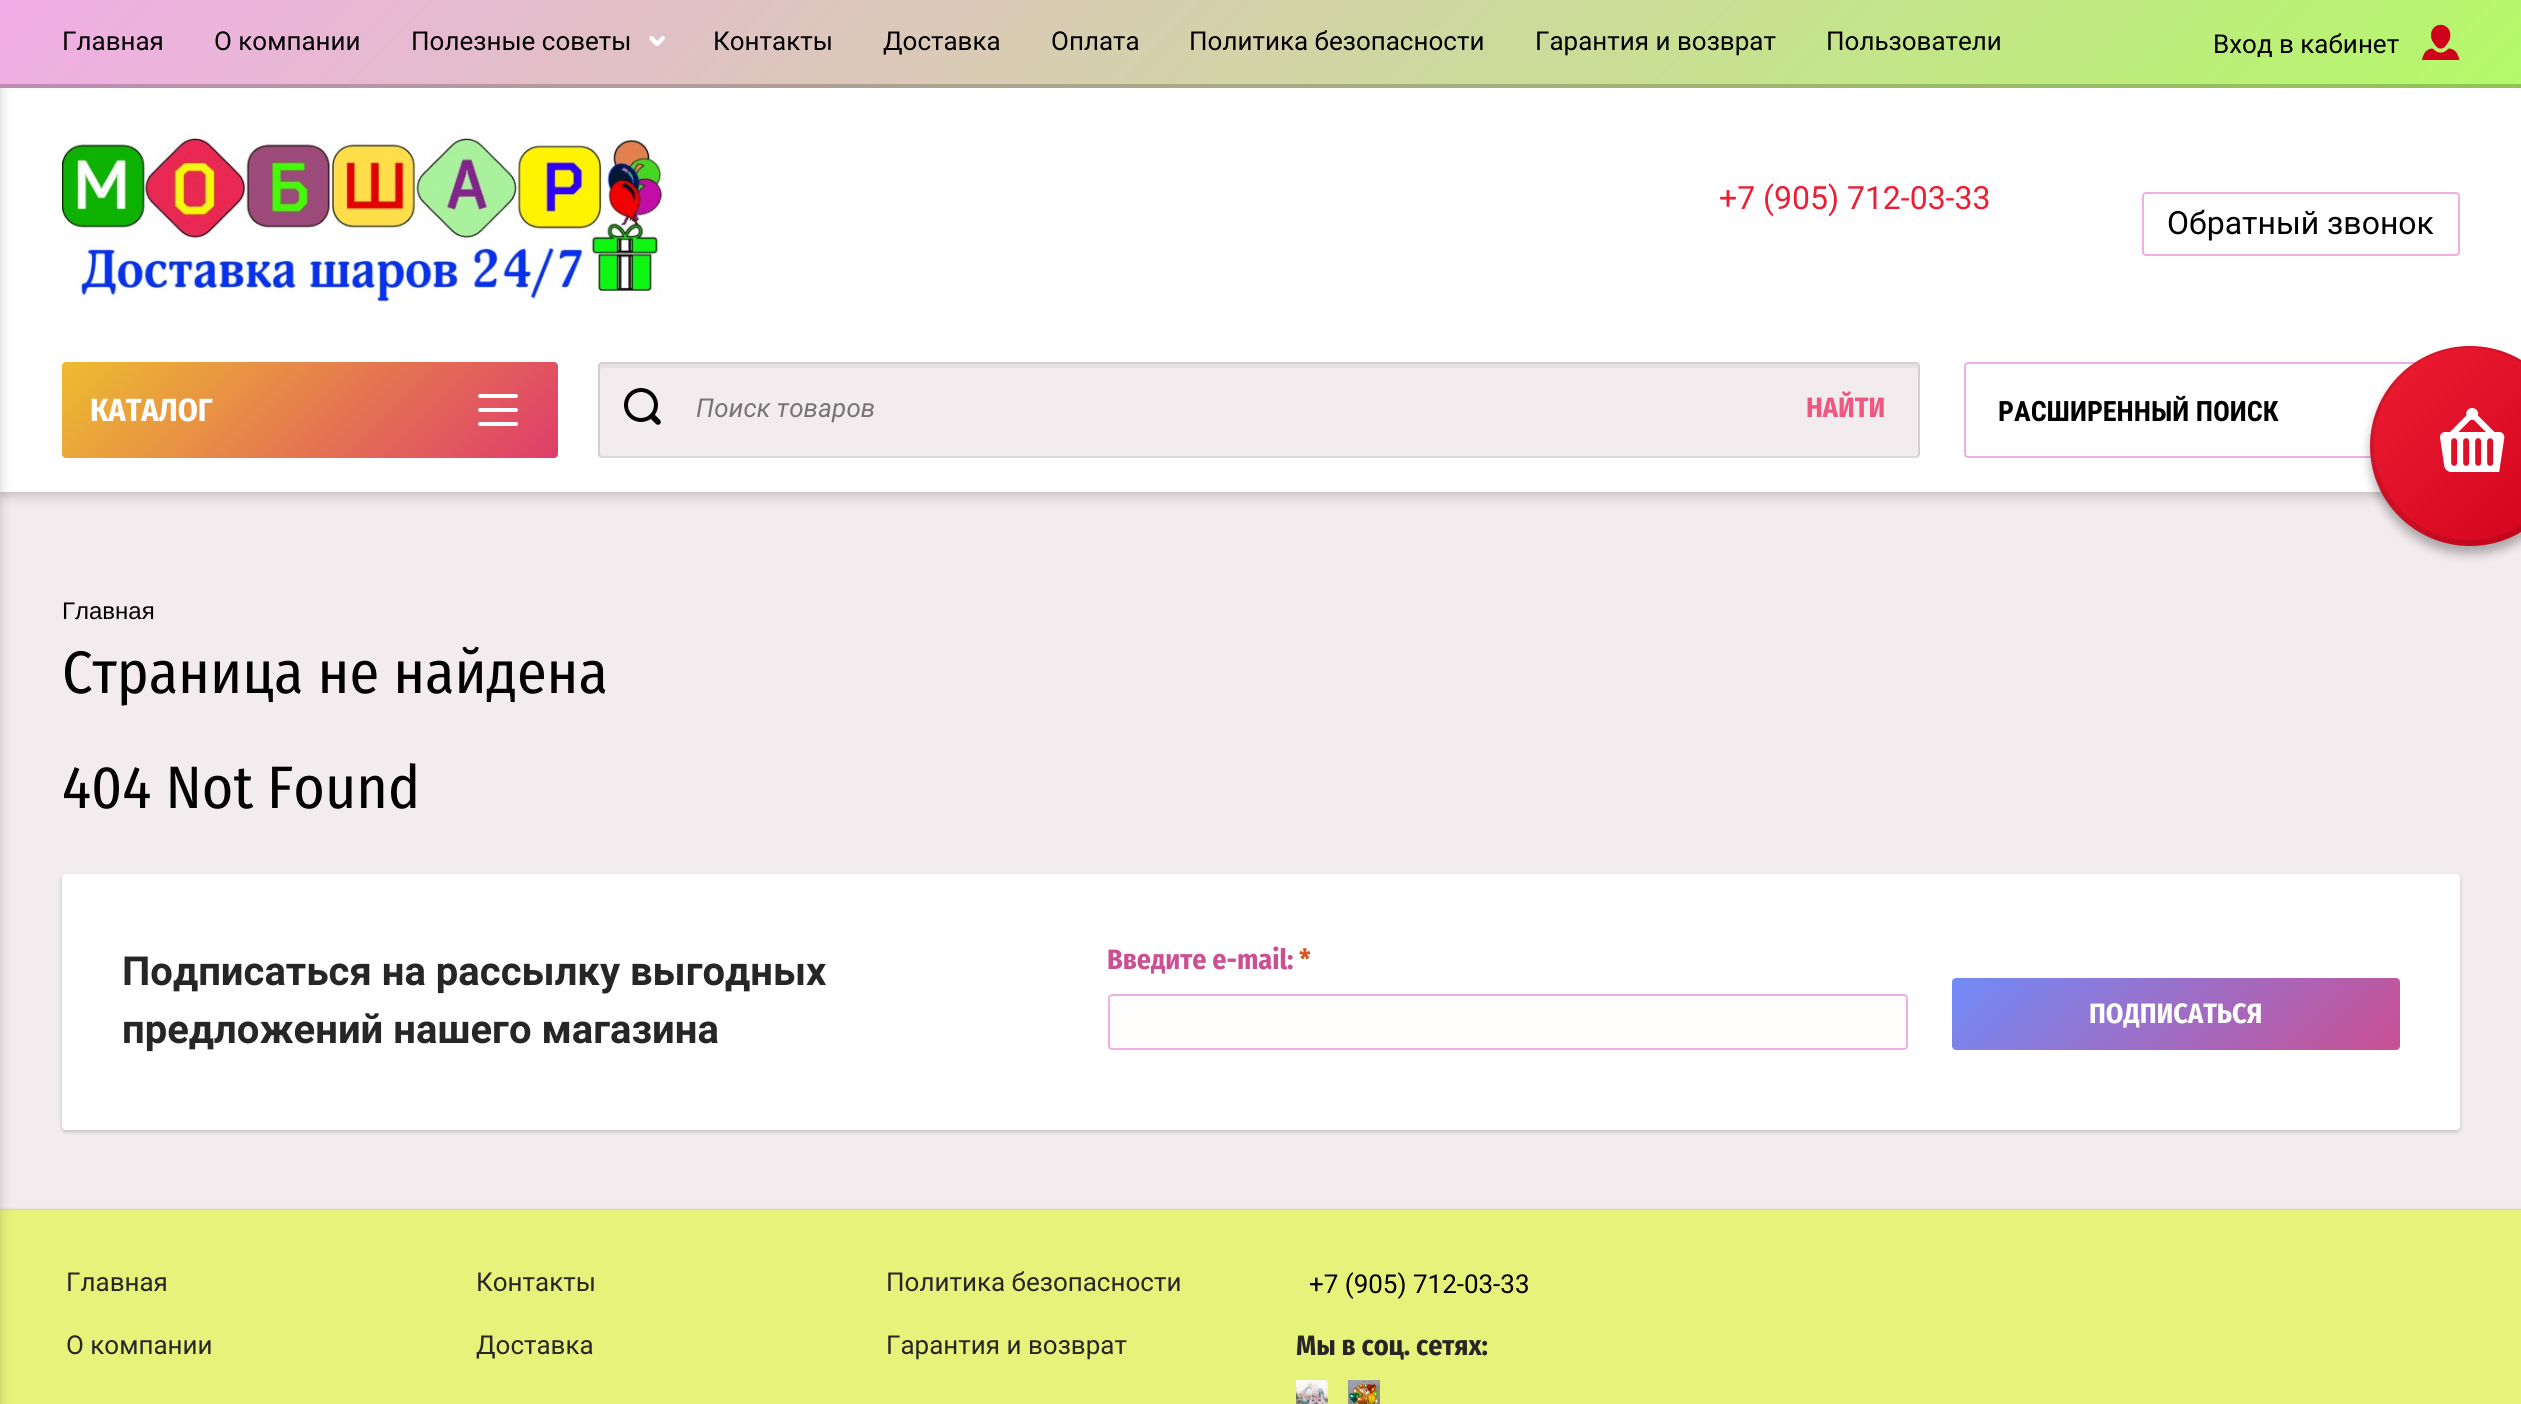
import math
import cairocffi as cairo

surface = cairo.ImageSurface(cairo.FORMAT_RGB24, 2521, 1404)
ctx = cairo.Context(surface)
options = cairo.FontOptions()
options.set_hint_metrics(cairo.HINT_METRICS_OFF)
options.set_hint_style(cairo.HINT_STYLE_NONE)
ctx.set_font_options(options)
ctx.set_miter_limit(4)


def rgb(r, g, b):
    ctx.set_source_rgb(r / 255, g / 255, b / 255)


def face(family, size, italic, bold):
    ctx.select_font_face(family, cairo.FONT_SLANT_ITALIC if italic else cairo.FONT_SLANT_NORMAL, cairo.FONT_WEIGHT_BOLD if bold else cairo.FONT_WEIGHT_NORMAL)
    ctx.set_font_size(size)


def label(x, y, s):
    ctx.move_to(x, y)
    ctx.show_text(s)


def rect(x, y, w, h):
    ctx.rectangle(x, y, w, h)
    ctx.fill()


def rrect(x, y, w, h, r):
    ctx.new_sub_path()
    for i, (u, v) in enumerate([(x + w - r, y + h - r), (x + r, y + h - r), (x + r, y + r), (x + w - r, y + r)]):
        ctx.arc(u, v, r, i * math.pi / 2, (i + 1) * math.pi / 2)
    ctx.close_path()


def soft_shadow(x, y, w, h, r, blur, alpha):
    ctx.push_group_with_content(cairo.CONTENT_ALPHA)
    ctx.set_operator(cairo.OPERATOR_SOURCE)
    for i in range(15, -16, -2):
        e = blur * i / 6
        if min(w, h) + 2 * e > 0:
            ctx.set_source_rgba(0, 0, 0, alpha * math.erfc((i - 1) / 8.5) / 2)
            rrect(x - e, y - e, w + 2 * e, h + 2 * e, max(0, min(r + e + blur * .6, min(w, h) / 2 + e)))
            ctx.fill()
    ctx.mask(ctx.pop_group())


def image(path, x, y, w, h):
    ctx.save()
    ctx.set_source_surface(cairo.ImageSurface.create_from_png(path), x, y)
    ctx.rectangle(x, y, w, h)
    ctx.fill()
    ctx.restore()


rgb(243, 236, 238)
ctx.paint()
rgb(0, 0, 0)
soft_shadow(0, 4, 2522, 492, 0, 6, 0.2)
rgb(255, 255, 255)
rect(0, 88, 2521, 404)
rgb(0, 0, 0)
soft_shadow(0, 1212, 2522, 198, 0, 2, 1)
rgb(230, 243, 122)
rect(0, 1210, 2521, 194)
rgb(0, 0, 0)
soft_shadow(-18, 4, 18, 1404, 0, 6, 0.2)
gradient = cairo.LinearGradient(608, -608, 1914, 697)
gradient.add_color_stop_rgba(0, 0.945, 0.678, 0.902, 1)
gradient.add_color_stop_rgba(1, 0.706, 0.976, 0.412, 1)
ctx.set_source(gradient)
rect(0, 0, 2521, 88)
ctx.set_source_rgba(0, 0, 0, 0.2)
rect(0, 84, 2521, 4)
face('Roboto', 26, 0, 0)
rgb(0, 0, 0)
label(62, 50, 'Главная')
label(214, 50, 'О компании')
label(411, 50, 'Полезные советы')
rgb(255, 255, 255)
ctx.new_path()
ctx.move_to(664.5, 39.5)
ctx.curve_to(663.5, 40.5, 656.5, 49.5, 655.5, 44.5)
ctx.curve_to(655, 42.5, 658.5, 40, 659.5, 38.5)
ctx.line_to(662, 36)
ctx.curve_to(664, 35.5, 665.5, 38, 664.5, 39.5)
ctx.close_path()
ctx.fill()
ctx.new_path()
ctx.move_to(653, 36.5)
ctx.curve_to(653.5, 37.5, 662.5, 45, 657, 46)
ctx.curve_to(655, 46, 653, 42.5, 651.5, 41.5)
ctx.line_to(649.5, 39)
ctx.curve_to(648.5, 37, 651.5, 35, 653, 36.5)
ctx.close_path()
ctx.fill()
rgb(0, 0, 0)
label(713, 50, 'Контакты')
label(883, 50, 'Доставка')
label(1051, 50, 'Оплата')
label(1189, 50, 'Политика безопасности')
label(1535, 50, 'Гарантия и возврат')
label(1826, 50, 'Пользователи')
image('image0.png', 2422, 24, 38, 36)
label(2213, 53, 'Вход в кабинет')
image('image1.png', 62, 138, 600, 164)
face('Roboto', 32, 0, 0)
rgb(237, 29, 51)
label(1719, 209, '+7 (905) 712-03-33')
rrect(2143, 193, 316, 62, 3)
rgb(241, 173, 230)
ctx.stroke()
rgb(0, 0, 0)
label(2167, 234, 'Обратный звонок')
gradient = cairo.LinearGradient(162, 262, 458, 558)
gradient.add_color_stop_rgba(0, 0.929, 0.737, 0.188, 1)
gradient.add_color_stop_rgba(1, 0.871, 0.239, 0.42, 1)
ctx.set_source(gradient)
rrect(62, 362, 496, 96, 4)
ctx.fill()
face('Fira Sans Condensed', 32, 0, 1)
rgb(255, 255, 255)
label(90, 421, 'КАТАЛОГ')
image('image2.png', 478, 394, 40, 32)
rgb(243, 236, 238)
rrect(598, 362, 1322, 96, 4)
ctx.fill()
rrect(599, 363, 1320, 94, 3)
ctx.set_source_rgba(0.125, 0.125, 0.125, 0.1)
ctx.stroke()
ctx.set_source_rgba(0, 0, 0, 0.05)
ctx.new_path()
ctx.move_to(602, 368)
ctx.line_to(1916, 368)
ctx.curve_to(1917, 368, 1918, 369, 1918, 370)
ctx.line_to(1918, 457)
ctx.curve_to(1919, 457, 1920, 455, 1920, 454)
ctx.line_to(1920, 366)
ctx.curve_to(1920, 364, 1918, 362, 1916, 362)
ctx.line_to(602, 362)
ctx.curve_to(600, 362, 598, 364, 598, 366)
ctx.line_to(598, 454)
ctx.curve_to(598, 455, 599, 457, 600, 457)
ctx.line_to(600, 370)
ctx.curve_to(600, 369, 601, 368, 602, 368)
ctx.close_path()
ctx.fill()
image('image3.png', 624, 388, 37, 37)
face('Roboto', 26, 1, 0)
rgb(117, 117, 117)
label(696, 417, 'Поиск товаров')
face('Fira Sans Condensed', 28, 0, 1)
rgb(238, 87, 130)
label(1806, 417, 'НАЙТИ')
rrect(1965, 363, 494, 94, 3)
rgb(241, 173, 230)
ctx.stroke()
face('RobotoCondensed', 28, 0, 1)
rgb(0, 0, 0)
label(1998, 421, 'РАСШИРЕННЫЙ ПОИСК')
face('Liberation Sans', 24, 0, 0)
label(62, 619, 'Главная')
face('Fira Sans Condensed', 60, 0, 0)
label(62, 693, 'Страница не найдена')
label(62, 808, '404 Not Found')
rgb(0, 0, 0)
soft_shadow(62, 876, 2398, 256, 4, 2, 0.2)
rgb(255, 255, 255)
rrect(62, 874, 2398, 256, 4)
ctx.fill()
face('Roboto', 40, 0, 1)
rgb(38, 38, 38)
label(122, 985, 'Подписаться на рассылку выгодных')
label(122, 1043, 'предложений нашего магазина')
face('Fira Sans Condensed', 28, 0, 1)
rgb(202, 80, 147)
label(1107, 969, 'Введите e-mail:')
rgb(224, 83, 28)
label(1299, 969, '*')
rgb(255, 254, 252)
rrect(1109, 995, 798, 54, 3)
ctx.fill_preserve()
rgb(241, 173, 230)
ctx.stroke()
gradient = cairo.LinearGradient(2046, 884, 2306, 1144)
gradient.add_color_stop_rgba(0, 0.443, 0.545, 0.973, 1)
gradient.add_color_stop_rgba(1, 0.792, 0.314, 0.576, 1)
ctx.set_source(gradient)
rrect(1952, 978, 448, 72, 4)
ctx.fill()
rgb(255, 255, 255)
label(2089, 1023, 'ПОДПИСАТЬСЯ')
face('Roboto', 26, 0, 0)
rgb(38, 38, 38)
label(66, 1291, 'Главная')
label(66, 1354, 'О компании')
label(476, 1291, 'Контакты')
label(476, 1354, 'Доставка')
label(886, 1291, 'Политика безопасности')
label(886, 1354, 'Гарантия и возврат')
rgb(0, 0, 0)
label(1309, 1293, '+7 (905) 712-03-33')
face('Fira Sans Condensed', 28, 0, 1)
rgb(38, 38, 38)
label(1296, 1355, 'Мы в соц. сетях:')
image('image4.png', 1296, 1380, 32, 24)
image('image5.png', 1348, 1380, 32, 24)
rgb(0, 0, 0)
soft_shadow(2370, 354, 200, 200, 100, 5, 0.3)
gradient = cairo.LinearGradient(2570, 546, 2370, 346)
gradient.add_color_stop_rgba(0, 0.816, 0.008, 0.106, 1)
gradient.add_color_stop_rgba(1, 0.929, 0.114, 0.2, 1)
ctx.set_source(gradient)
ctx.arc(2470, 446, 100, 0, 2 * math.pi)
ctx.fill()
ctx.set_source_rgba(0, 0, 0, 0.09)
ctx.set_fill_rule(cairo.FILL_RULE_EVEN_ODD)
ctx.new_path()
ctx.move_to(2470, 346)
ctx.curve_to(2415, 346, 2370, 391, 2370, 446)
ctx.curve_to(2370, 501, 2415, 546, 2470, 546)
ctx.curve_to(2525, 546, 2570, 501, 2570, 446)
ctx.curve_to(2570, 391, 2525, 346, 2470, 346)
ctx.close_path()
ctx.move_to(2470, 348)
ctx.curve_to(2417, 348, 2374, 391, 2374, 444)
ctx.curve_to(2374, 497, 2417, 540, 2470, 540)
ctx.curve_to(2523, 540, 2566, 497, 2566, 444)
ctx.curve_to(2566, 391, 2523, 348, 2470, 348)
ctx.close_path()
ctx.fill()
image('image6.png', 2440, 408, 65, 64)
surface.write_to_png('render.png')
